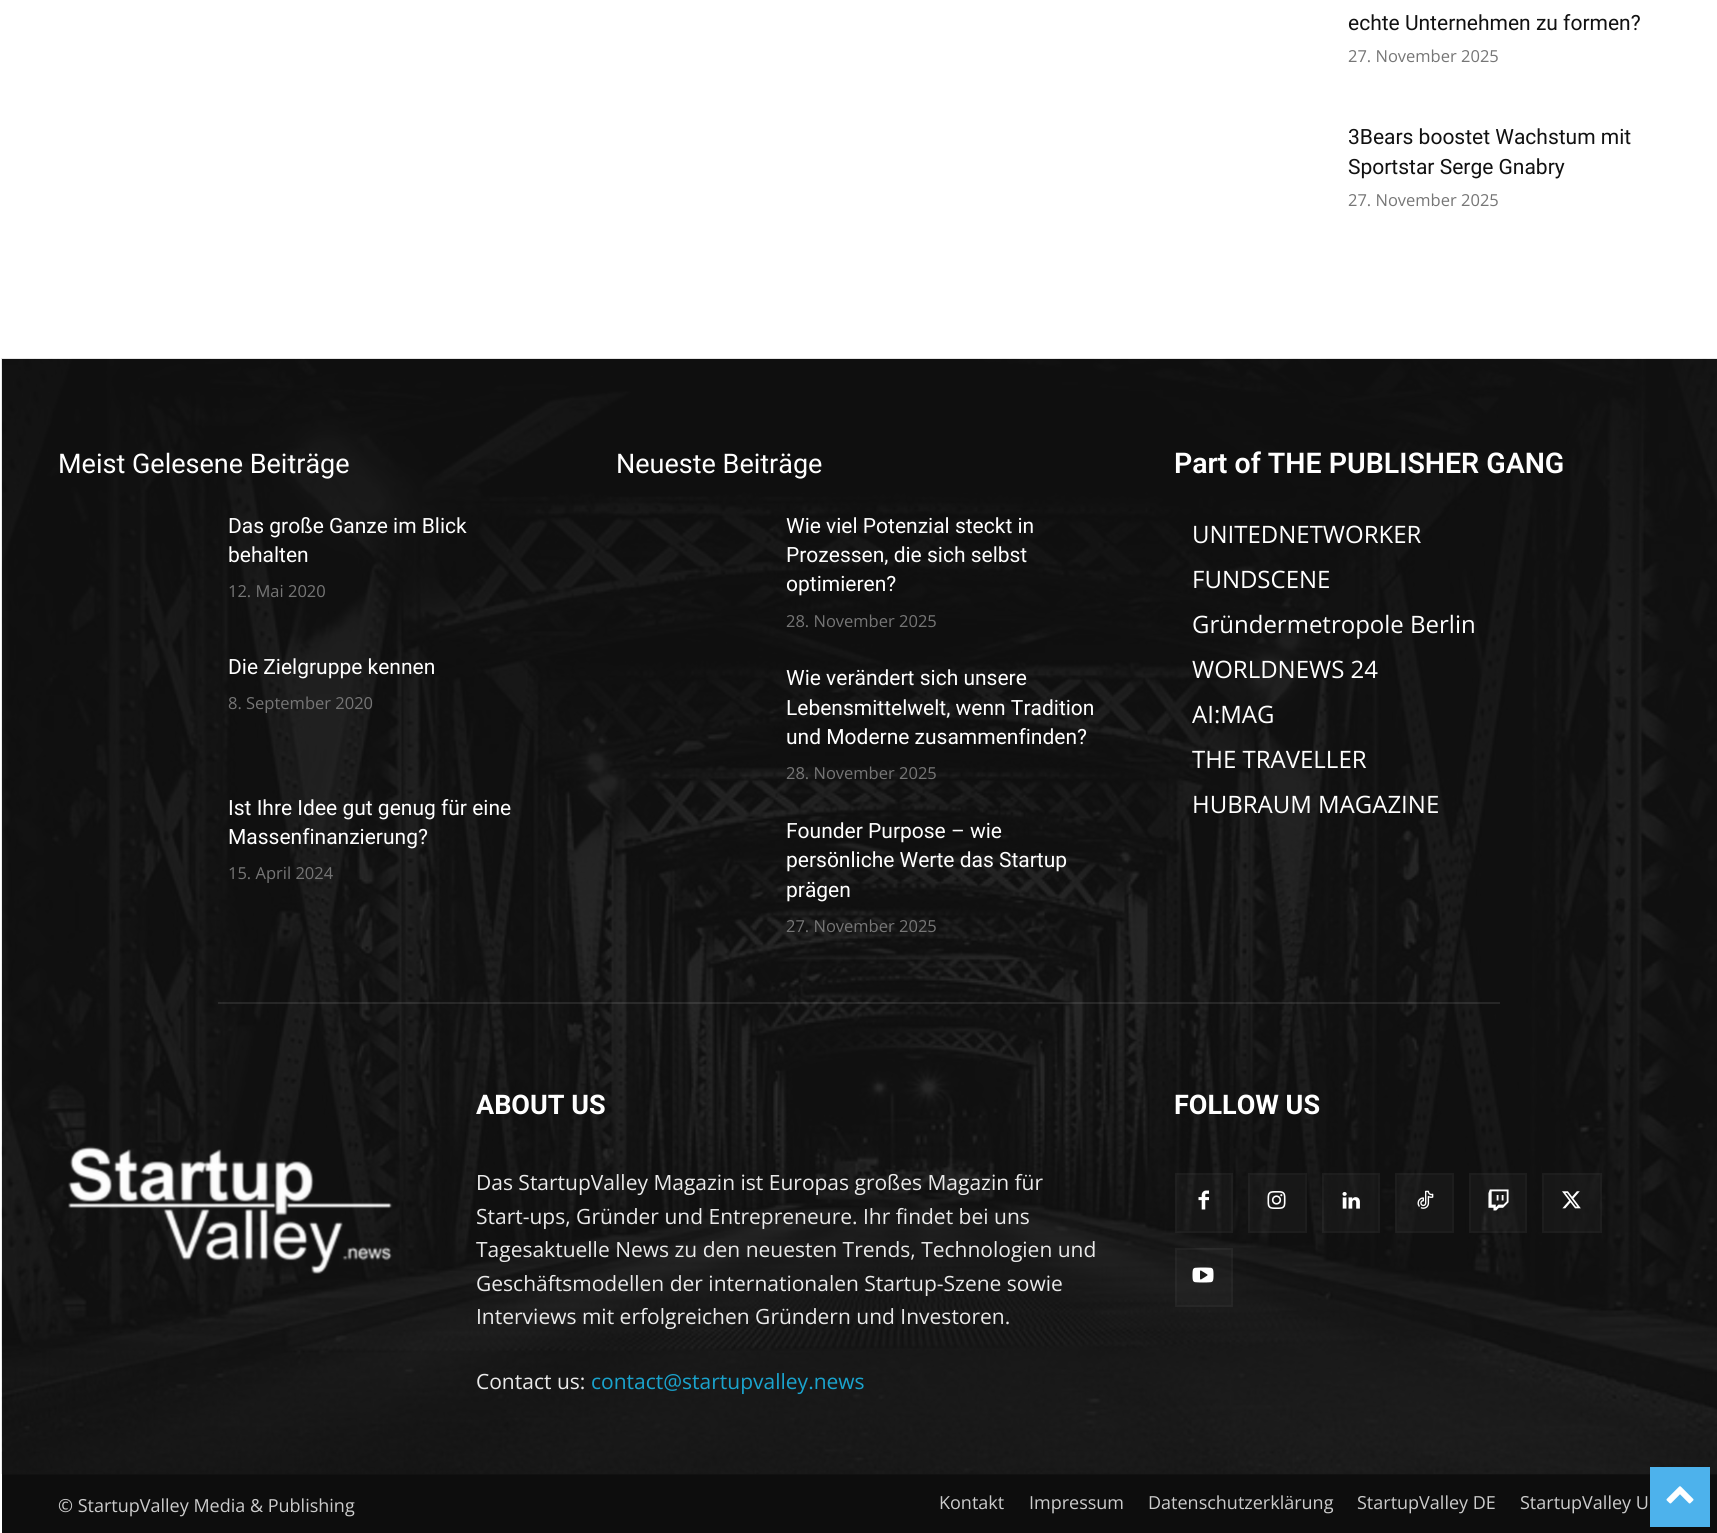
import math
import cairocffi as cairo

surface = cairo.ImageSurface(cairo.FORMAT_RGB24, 1717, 1533)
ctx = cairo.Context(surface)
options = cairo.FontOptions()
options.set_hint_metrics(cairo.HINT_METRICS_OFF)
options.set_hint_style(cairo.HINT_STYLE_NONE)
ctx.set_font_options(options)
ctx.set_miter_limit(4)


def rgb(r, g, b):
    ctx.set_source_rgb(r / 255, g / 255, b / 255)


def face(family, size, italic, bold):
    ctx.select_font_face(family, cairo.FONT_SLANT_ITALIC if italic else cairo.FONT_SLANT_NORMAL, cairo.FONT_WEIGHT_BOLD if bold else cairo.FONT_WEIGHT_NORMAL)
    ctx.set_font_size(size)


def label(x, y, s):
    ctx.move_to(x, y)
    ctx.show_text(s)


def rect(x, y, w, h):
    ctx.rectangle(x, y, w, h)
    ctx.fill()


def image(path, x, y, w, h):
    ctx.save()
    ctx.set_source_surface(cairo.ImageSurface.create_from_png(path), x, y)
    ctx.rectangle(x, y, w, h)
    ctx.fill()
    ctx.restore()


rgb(255, 255, 255)
ctx.paint()
face('Roboto', 21, 0, 0)
rgb(17, 17, 17)
label(1348, 30, 'echte Unternehmen zu formen?')
face('Open Sans', 16.5, 0, 0)
rgb(118, 118, 118)
label(1348, 62, '27. November 2025')
face('Roboto', 21, 0, 0)
rgb(17, 17, 17)
label(1348, 144, '3Bears boostet Wachstum mit')
label(1348, 174, 'Sportstar Serge Gnabry')
face('Open Sans', 16.5, 0, 0)
rgb(118, 118, 118)
label(1348, 206, '27. November 2025')
rgb(17, 17, 17)
rect(2, 359, 1715, 1116)
image('image0.png', 1, 358, 1716, 1116)
face('Roboto', 27, 0, 0)
rgb(255, 255, 255)
label(58, 473, 'Meist Gelesene Beiträge')
face('Roboto', 21, 0, 0)
label(228, 533, 'Das große Ganze im Blick')
label(228, 562, 'behalten')
face('Open Sans', 16.5, 0, 0)
rgb(118, 118, 118)
label(228, 597, '12. Mai 2020')
face('Roboto', 21, 0, 0)
rgb(255, 255, 255)
label(228, 674, 'Die Zielgruppe kennen')
face('Open Sans', 16.5, 0, 0)
rgb(118, 118, 118)
label(228, 709, '8. September 2020')
face('Roboto', 21, 0, 0)
rgb(255, 255, 255)
label(228, 815, 'Ist Ihre Idee gut genug für eine')
label(228, 844, 'Massenfinanzierung?')
face('Open Sans', 16.5, 0, 0)
rgb(118, 118, 118)
label(228, 879, '15. April 2024')
face('Roboto', 27, 0, 0)
rgb(255, 255, 255)
label(616, 473, 'Neueste Beiträge')
face('Roboto', 21, 0, 0)
label(786, 533, 'Wie viel Potenzial steckt in')
label(786, 562, 'Prozessen, die sich selbst')
label(786, 591, 'optimieren?')
face('Open Sans', 16.5, 0, 0)
rgb(118, 118, 118)
label(786, 627, '28. November 2025')
face('Roboto', 21, 0, 0)
rgb(255, 255, 255)
label(786, 685, 'Wie verändert sich unsere')
label(786, 715, 'Lebensmittelwelt, wenn Tradition')
label(786, 744, 'und Moderne zusammenfinden?')
face('Open Sans', 16.5, 0, 0)
rgb(118, 118, 118)
label(786, 779, '28. November 2025')
face('Roboto', 21, 0, 0)
rgb(255, 255, 255)
label(786, 838, 'Founder Purpose – wie')
label(786, 867, 'persönliche Werte das Startup')
label(786, 897, 'prägen')
face('Open Sans', 16.5, 0, 0)
rgb(118, 118, 118)
label(786, 932, '27. November 2025')
face('Roboto SemiBold', 28.5, 0, 0)
rgb(255, 255, 255)
label(1174, 473, 'Part of THE PUBLISHER GANG')
face('Open Sans', 24, 0, 0)
label(1192, 543, 'UNITEDNETWORKER')
label(1192, 588, 'FUNDSCENE')
label(1192, 633, 'Gründermetropole Berlin')
label(1192, 678, 'WORLDNEWS 24')
label(1192, 723, 'AI:MAG')
label(1192, 768, 'THE TRAVELLER')
label(1192, 813, 'HUBRAUM MAGAZINE')
ctx.set_source_rgba(1, 1, 1, 0.1)
rect(218, 1002, 1282, 2)
face('Roboto', 27, 0, 1)
rgb(255, 255, 255)
label(476, 1114, 'ABOUT US')
face('Open Sans', 21, 0, 0)
rgb(234, 234, 234)
label(476, 1190, 'Das StartupValley Magazin ist Europas großes Magazin für')
label(476, 1224, 'Start-ups, Gründer und Entrepreneure. Ihr findet bei uns')
label(476, 1257, 'Tagesaktuelle News zu den neuesten Trends, Technologien und')
label(476, 1291, 'Geschäftsmodellen der internationalen Startup-Szene sowie')
label(476, 1324, 'Interviews mit erfolgreichen Gründern und Investoren.')
label(476, 1389, 'Contact us:')
rgb(26, 164, 206)
label(591, 1389, 'contact@startupvalley.news')
face('Roboto', 27, 0, 1)
rgb(255, 255, 255)
label(1174, 1114, 'FOLLOW US')
ctx.set_source_rgba(1, 1, 1, 0.03)
rect(1175, 1173, 58, 60)
ctx.rectangle(1176, 1174, 56, 58)
ctx.stroke()
image('image1.png', 1198, 1190, 11, 20)
rect(1248, 1173, 59, 60)
ctx.rectangle(1249, 1174, 57, 58)
ctx.stroke()
image('image2.png', 1267, 1191, 19, 18)
rect(1322, 1173, 58, 60)
ctx.rectangle(1323, 1174, 56, 58)
ctx.stroke()
image('image3.png', 1342, 1192, 18, 17)
rect(1395, 1173, 59, 60)
ctx.rectangle(1396, 1174, 57, 58)
ctx.stroke()
image('image4.png', 1417, 1190, 17, 19)
rect(1469, 1173, 58, 60)
ctx.rectangle(1470, 1174, 56, 58)
ctx.stroke()
image('image5.png', 1488, 1189, 21, 22)
rect(1542, 1173, 60, 60)
ctx.rectangle(1543, 1174, 58, 58)
ctx.stroke()
image('image6.png', 1562, 1191, 19, 18)
rect(1175, 1248, 58, 59)
ctx.rectangle(1176, 1249, 56, 57)
ctx.stroke()
image('image7.png', 1192, 1267, 22, 16)
image('image8.png', 68, 1146, 325, 128)
rgb(13, 13, 13)
rect(2, 1475, 1715, 58)
face('Open Sans', 18, 0, 0)
rgb(204, 204, 204)
label(58, 1512, '© StartupValley Media & Publishing')
label(939, 1509, 'Kontakt')
label(1029, 1509, 'Impressum')
label(1148, 1509, 'Datenschutzerklärung')
label(1357, 1509, 'StartupValley DE')
label(1520, 1509, 'StartupValley U')
rgb(77, 178, 236)
rect(1650, 1467, 60, 60)
image('image9.png', 1666, 1486, 28, 18)
surface.write_to_png('render.png')
